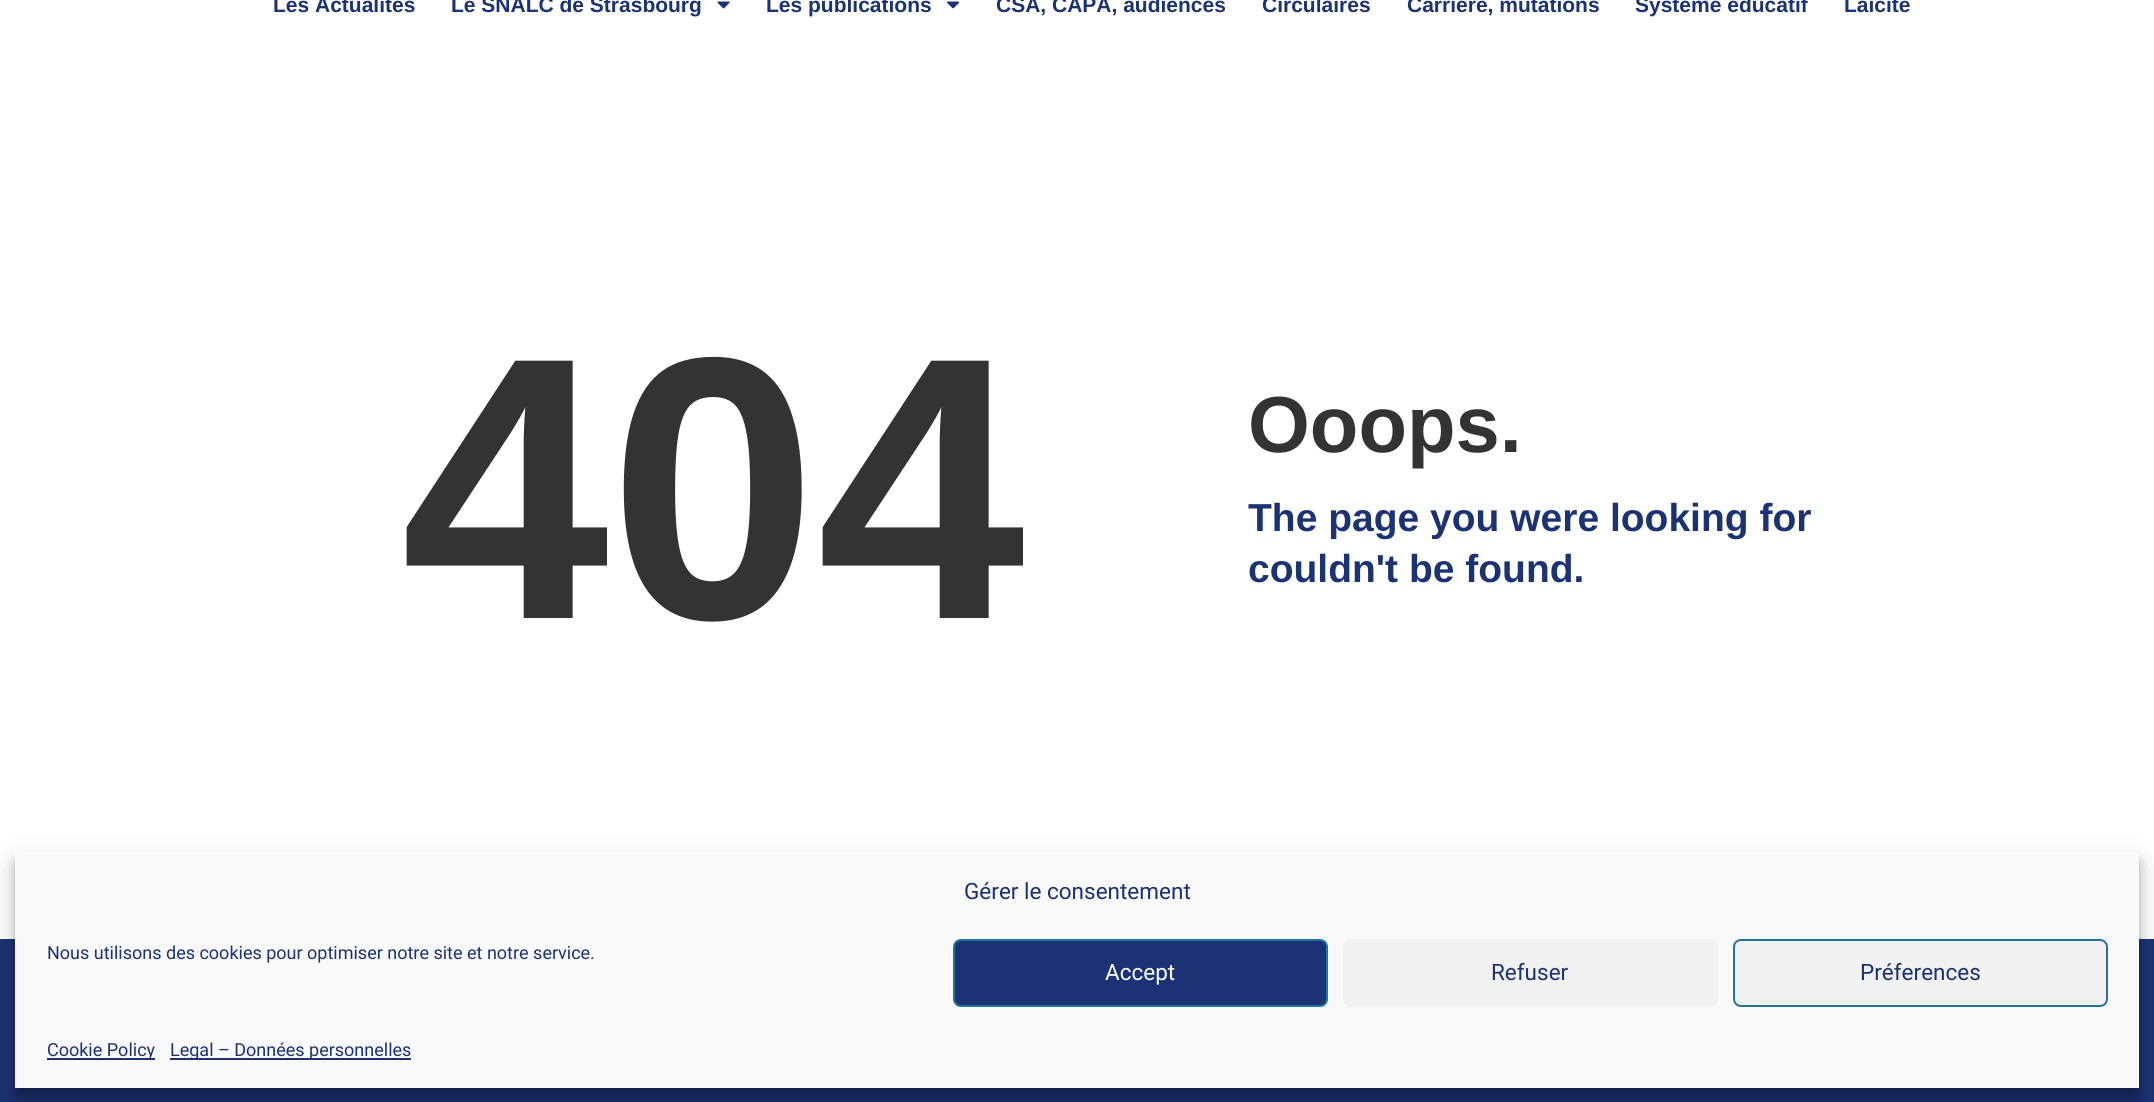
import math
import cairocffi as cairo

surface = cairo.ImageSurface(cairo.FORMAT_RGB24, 2154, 1102)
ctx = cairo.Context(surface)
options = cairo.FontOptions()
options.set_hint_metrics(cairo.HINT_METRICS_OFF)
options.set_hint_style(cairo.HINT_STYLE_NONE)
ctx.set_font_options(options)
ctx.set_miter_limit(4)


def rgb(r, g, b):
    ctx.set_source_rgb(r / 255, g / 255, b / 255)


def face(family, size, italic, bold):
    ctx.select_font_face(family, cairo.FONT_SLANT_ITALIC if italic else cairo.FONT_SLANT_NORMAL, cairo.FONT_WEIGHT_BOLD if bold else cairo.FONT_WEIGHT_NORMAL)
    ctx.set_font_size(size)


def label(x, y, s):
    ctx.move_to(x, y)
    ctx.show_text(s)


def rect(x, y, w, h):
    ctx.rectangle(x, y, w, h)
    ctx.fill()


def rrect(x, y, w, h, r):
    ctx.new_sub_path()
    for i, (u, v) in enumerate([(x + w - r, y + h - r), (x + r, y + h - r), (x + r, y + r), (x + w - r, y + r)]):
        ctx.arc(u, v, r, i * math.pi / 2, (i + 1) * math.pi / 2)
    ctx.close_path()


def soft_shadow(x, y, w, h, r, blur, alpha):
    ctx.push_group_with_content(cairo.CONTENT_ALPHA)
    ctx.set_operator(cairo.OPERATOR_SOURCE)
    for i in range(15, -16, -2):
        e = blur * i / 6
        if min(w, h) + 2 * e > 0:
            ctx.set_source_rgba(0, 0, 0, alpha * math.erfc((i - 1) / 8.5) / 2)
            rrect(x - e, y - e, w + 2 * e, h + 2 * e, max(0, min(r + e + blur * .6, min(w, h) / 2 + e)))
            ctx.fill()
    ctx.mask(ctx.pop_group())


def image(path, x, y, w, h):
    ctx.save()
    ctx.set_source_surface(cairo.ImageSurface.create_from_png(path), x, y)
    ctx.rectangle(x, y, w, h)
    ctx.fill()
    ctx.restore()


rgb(255, 255, 255)
ctx.paint()
face('Liberation Sans', 21, 0, 1)
rgb(27, 50, 116)
label(273, 12, 'Les Actualités')
label(451, 12, 'Le SNALC de Strasbourg')
image('image0.png', 717, 1, 13, 8)
label(766, 12, 'Les publications')
image('image1.png', 947, 1, 13, 8)
label(996, 12, 'CSA, CAPA, audiences')
label(1262, 12, 'Circulaires')
label(1407, 12, 'Carrière, mutations')
label(1635, 12, 'Système éducatif')
label(1844, 12, 'Laïcité')
face('Liberation Sans', 374, 0, 1)
rgb(51, 51, 51)
label(401, 618, '404')
face('Liberation Sans', 79.5, 0, 1)
label(1248, 452, 'Ooops.')
face('Liberation Sans', 39, 0, 1)
rgb(27, 50, 116)
label(1248, 531, 'The page you were looking for')
label(1248, 582, 'couldn\'t be found.')
rect(0, 939, 2154, 163)
rgb(0, 0, 0)
soft_shadow(15, 861, 2124, 236, 0, 4.5, 0.23)
soft_shadow(15, 867, 2124, 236, 0, 15, 0.19)
rgb(249, 249, 249)
rect(15, 852, 2124, 236)
face('Roboto', 22.5, 0, 0)
rgb(27, 50, 116)
label(964, 899, 'Gérer le consentement')
face('Roboto', 18, 0, 0)
label(47, 959, 'Nous utilisons des cookies pour optimiser notre site et notre service.')
rrect(954, 940, 373, 66, 7)
ctx.fill_preserve()
rgb(33, 117, 155)
ctx.stroke()
face('Roboto', 22.5, 0, 0)
rgb(255, 255, 255)
label(1105, 980, 'Accept')
rgb(241, 241, 241)
rrect(1343, 939, 375, 68, 8)
ctx.fill()
rgb(27, 50, 116)
label(1491, 980, 'Refuser')
rgb(241, 241, 241)
rrect(1734, 940, 373, 66, 7)
ctx.fill_preserve()
rgb(33, 117, 155)
ctx.stroke()
rgb(27, 50, 116)
label(1860, 980, 'Préferences')
rect(47, 1058, 108, 2)
face('Roboto', 18, 0, 0)
label(47, 1056, 'Cookie Policy')
rect(170, 1058, 241, 2)
label(170, 1056, 'Legal – Données personnelles')
surface.write_to_png('render.png')
